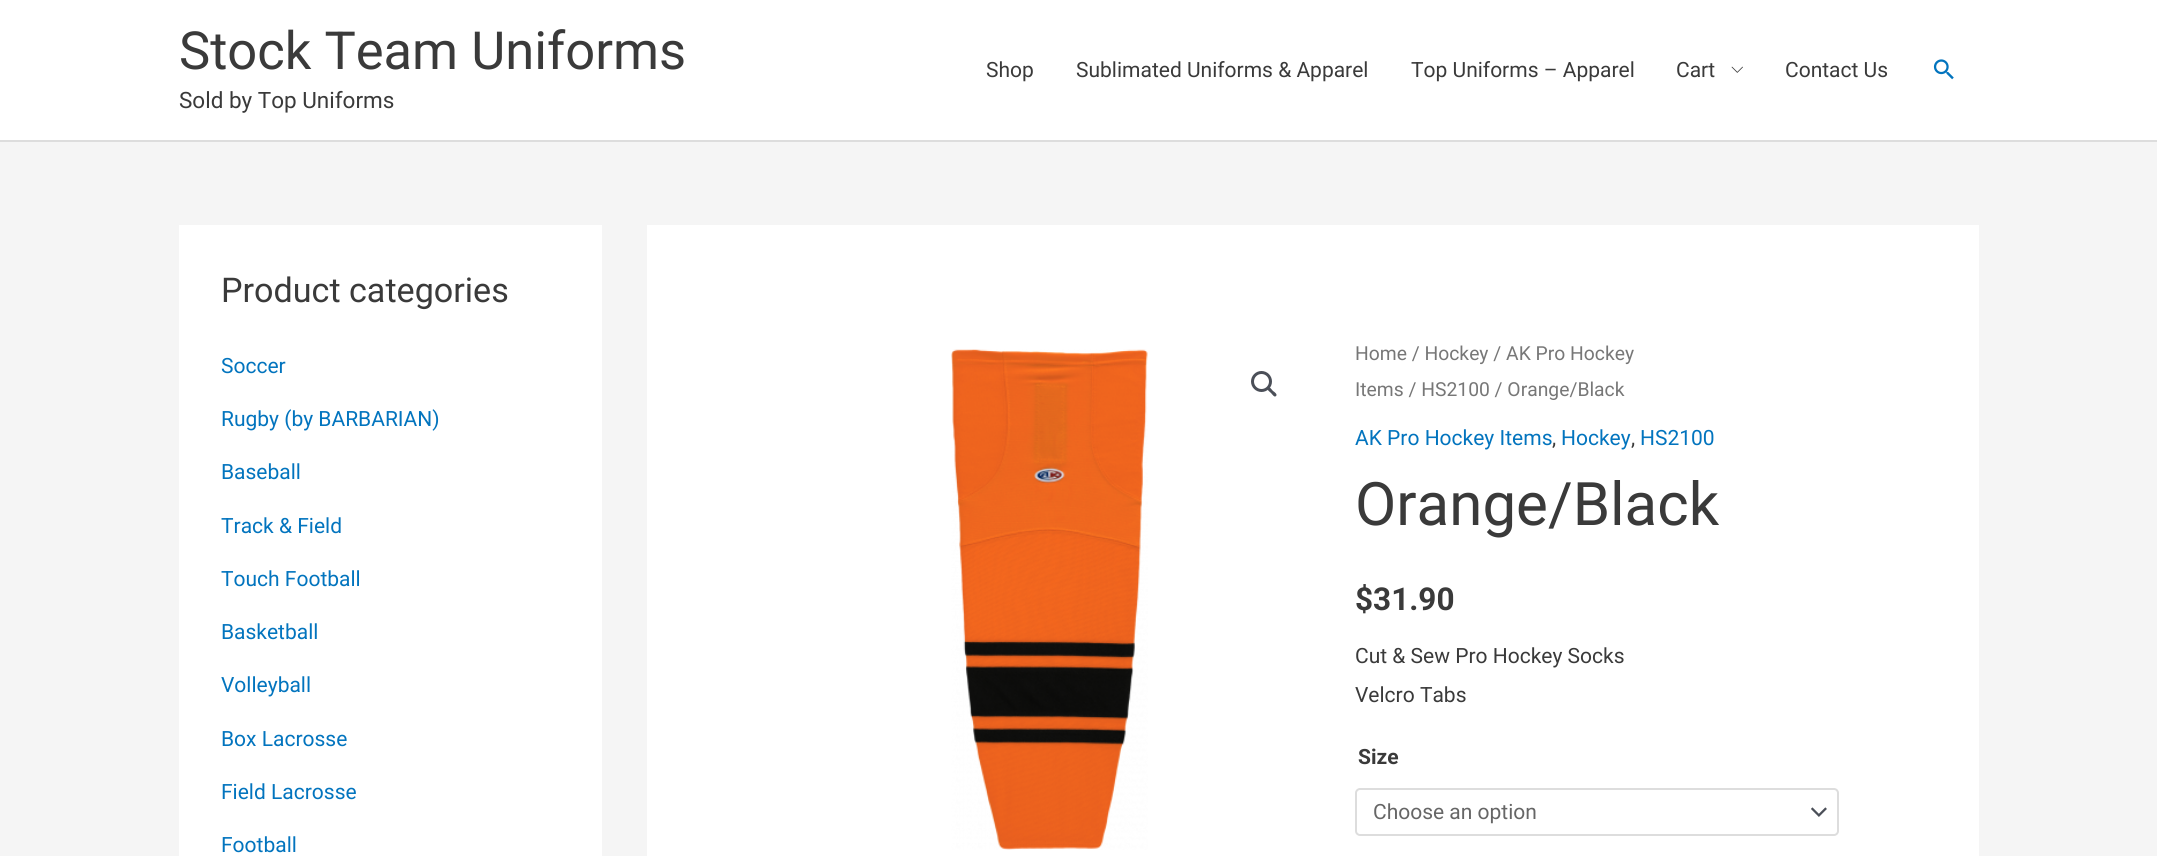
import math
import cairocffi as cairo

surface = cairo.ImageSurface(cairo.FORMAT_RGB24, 2157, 856)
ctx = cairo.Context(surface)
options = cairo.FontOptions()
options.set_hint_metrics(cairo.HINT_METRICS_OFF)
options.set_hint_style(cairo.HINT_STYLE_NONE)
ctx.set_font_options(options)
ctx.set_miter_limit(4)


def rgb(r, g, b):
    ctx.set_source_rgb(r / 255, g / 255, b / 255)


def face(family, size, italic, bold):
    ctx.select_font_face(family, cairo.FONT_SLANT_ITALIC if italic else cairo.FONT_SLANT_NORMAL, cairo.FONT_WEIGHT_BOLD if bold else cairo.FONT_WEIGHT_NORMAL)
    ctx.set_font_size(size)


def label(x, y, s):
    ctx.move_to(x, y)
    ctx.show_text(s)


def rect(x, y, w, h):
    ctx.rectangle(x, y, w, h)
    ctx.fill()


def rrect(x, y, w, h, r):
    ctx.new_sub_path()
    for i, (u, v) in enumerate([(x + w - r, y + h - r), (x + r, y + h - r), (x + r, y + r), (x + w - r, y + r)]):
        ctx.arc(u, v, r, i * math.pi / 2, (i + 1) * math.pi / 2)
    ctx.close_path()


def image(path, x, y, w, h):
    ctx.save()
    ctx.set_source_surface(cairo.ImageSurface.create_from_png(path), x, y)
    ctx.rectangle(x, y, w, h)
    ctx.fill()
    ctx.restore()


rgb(245, 245, 245)
ctx.paint()
rgb(255, 255, 255)
rect(0, 0, 2157, 140)
rgb(221, 221, 221)
rect(0, 140, 2157, 2)
face('Roboto', 52.5, 0, 0)
rgb(58, 58, 58)
label(179, 69, 'Stock Team Uniforms')
face('Roboto', 22.5, 0, 0)
label(179, 108, 'Sold by Top Uniforms')
face('Roboto', 21, 0, 0)
label(986, 77, 'Shop')
label(1076, 77, 'Sublimated Uniforms & Apparel')
label(1411, 77, 'Top Uniforms – Apparel')
label(1676, 77, 'Cart')
image('image0.png', 1731, 66, 12, 7)
label(1785, 77, 'Contact Us')
image('image1.png', 1933, 59, 21, 21)
rgb(255, 255, 255)
rect(179, 225, 423, 631)
face('Roboto', 34.1, 0, 0)
rgb(58, 58, 58)
label(221, 302, 'Product categories')
face('Roboto', 21, 0, 0)
rgb(2, 116, 190)
label(221, 373, 'Soccer')
label(221, 426, 'Rugby (by BARBARIAN)')
label(221, 479, 'Baseball')
label(221, 533, 'Track & Field')
label(221, 586, 'Touch Football')
label(221, 639, 'Basketball')
label(221, 692, 'Volleyball')
label(221, 746, 'Box Lacrosse')
label(221, 799, 'Field Lacrosse')
label(221, 852, 'Football')
rgb(255, 255, 255)
rect(647, 225, 1332, 631)
image('image2.png', 951, 349, 197, 501)
ctx.arc(1261.5, 381.5, 9, 0, 2 * math.pi)
rgb(75, 79, 88)
ctx.set_line_width(3)
ctx.stroke()
ctx.new_path()
ctx.move_to(1268, 387.5)
ctx.curve_to(1269.5, 386, 1272, 390, 1273, 391)
ctx.curve_to(1274, 391.5, 1278, 394.5, 1276, 396)
ctx.curve_to(1274.5, 398, 1272, 394, 1271, 393)
ctx.curve_to(1270, 392, 1266, 389.5, 1268, 387.5)
ctx.close_path()
ctx.fill()
face('Roboto', 19.3, 0, 0)
rgb(119, 119, 119)
label(1355, 360, 'Home / Hockey / AK Pro Hockey')
label(1355, 396, 'Items / HS2100 / Orange/Black')
face('Roboto', 21, 0, 0)
rgb(2, 116, 190)
label(1355, 445, 'AK Pro Hockey Items')
rgb(58, 58, 58)
label(1552, 445, ',')
rgb(2, 116, 190)
label(1561, 445, 'Hockey')
rgb(58, 58, 58)
label(1631, 445, ',')
rgb(2, 116, 190)
label(1640, 445, 'HS2100')
face('Roboto', 60, 0, 0)
rgb(58, 58, 58)
label(1355, 525, 'Orange/Black')
face('Roboto', 31.5, 0, 1)
label(1355, 610, '$31.90')
face('Roboto', 21, 0, 0)
label(1355, 663, 'Cut & Sew Pro Hockey Socks')
label(1355, 702, 'Velcro Tabs')
face('Roboto', 21, 0, 1)
label(1358, 764, 'Size')
image('image3.png', 1811, 807, 16, 10)
rrect(1356, 789, 482, 46, 4)
rgb(221, 221, 221)
ctx.set_line_width(2)
ctx.stroke()
face('Roboto', 21, 0, 0)
rgb(102, 102, 102)
label(1373, 819, 'Choose an option')
surface.write_to_png('render.png')
